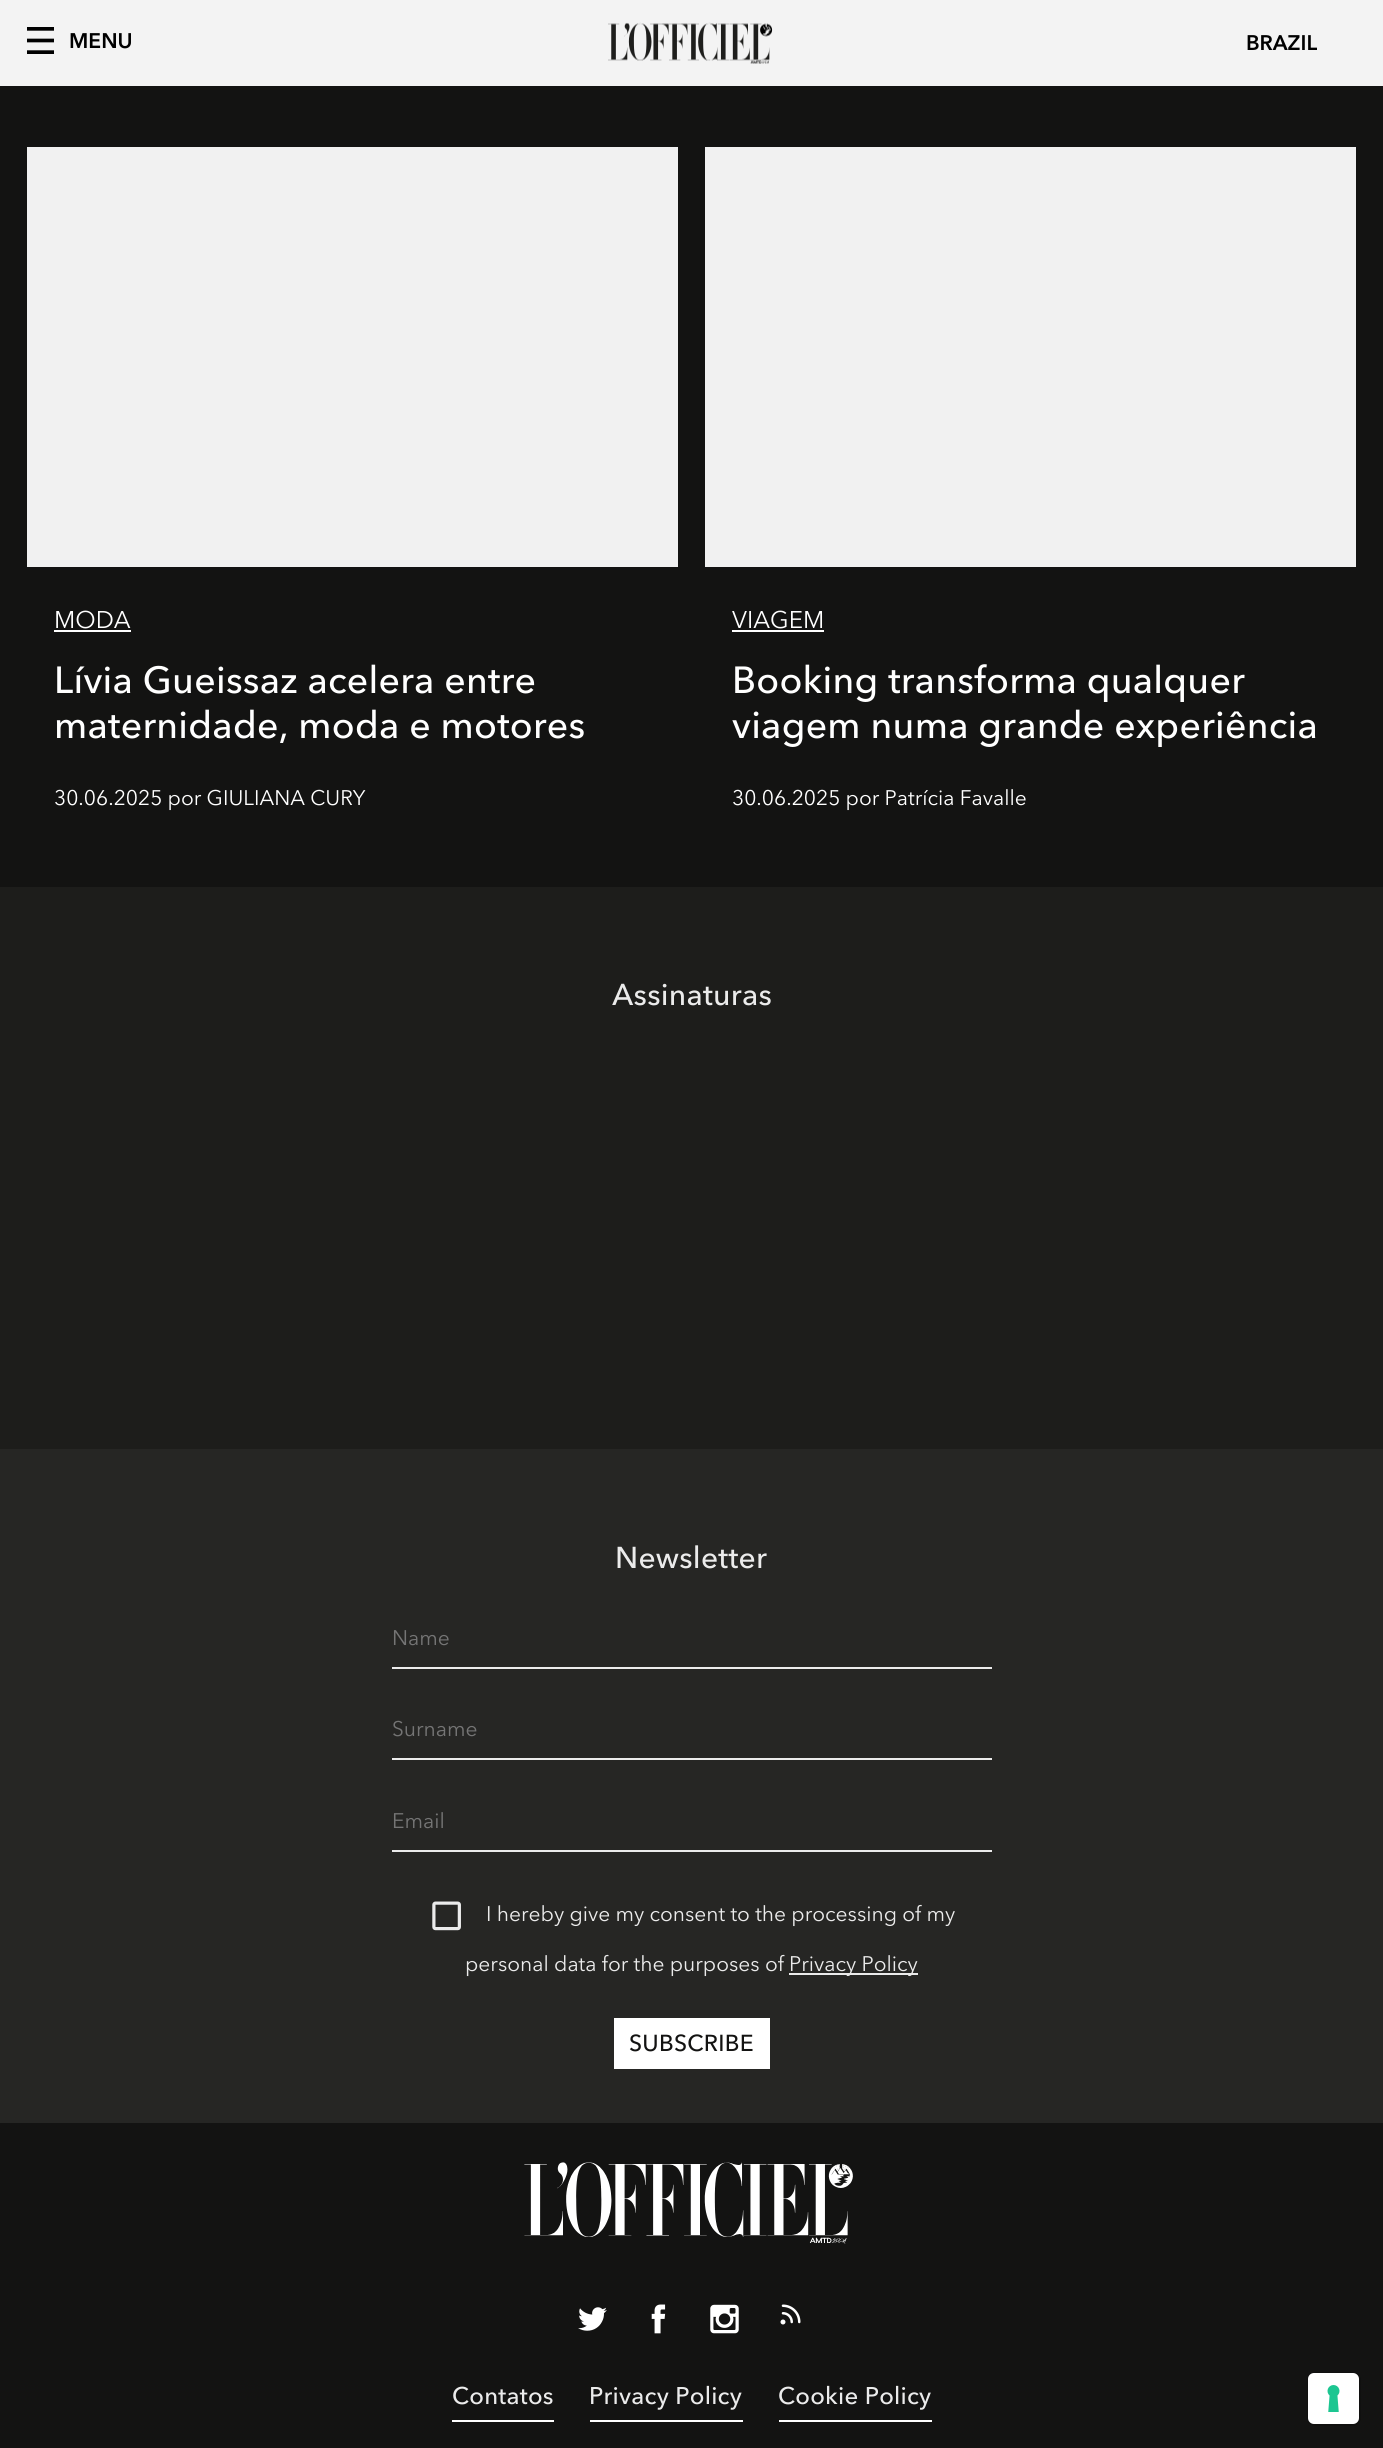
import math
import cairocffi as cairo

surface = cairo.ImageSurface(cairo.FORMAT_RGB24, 1383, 2448)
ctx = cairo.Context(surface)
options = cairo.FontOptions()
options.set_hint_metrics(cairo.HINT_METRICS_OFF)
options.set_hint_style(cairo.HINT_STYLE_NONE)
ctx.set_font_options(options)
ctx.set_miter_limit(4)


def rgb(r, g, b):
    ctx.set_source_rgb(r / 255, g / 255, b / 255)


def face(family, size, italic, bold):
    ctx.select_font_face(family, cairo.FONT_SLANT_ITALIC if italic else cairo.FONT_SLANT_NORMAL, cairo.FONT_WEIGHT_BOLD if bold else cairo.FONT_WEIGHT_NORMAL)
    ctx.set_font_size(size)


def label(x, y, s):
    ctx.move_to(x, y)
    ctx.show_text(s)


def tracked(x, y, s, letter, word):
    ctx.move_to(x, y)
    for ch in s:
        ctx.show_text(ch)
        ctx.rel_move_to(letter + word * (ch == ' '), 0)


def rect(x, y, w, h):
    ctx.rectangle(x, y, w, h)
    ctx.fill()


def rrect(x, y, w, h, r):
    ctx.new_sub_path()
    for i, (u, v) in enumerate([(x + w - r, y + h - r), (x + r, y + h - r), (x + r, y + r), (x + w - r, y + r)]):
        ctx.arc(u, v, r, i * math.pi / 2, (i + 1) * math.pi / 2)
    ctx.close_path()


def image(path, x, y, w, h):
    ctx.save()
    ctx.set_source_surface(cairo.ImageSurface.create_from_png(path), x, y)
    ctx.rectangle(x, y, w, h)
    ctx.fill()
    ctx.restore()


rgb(19, 19, 18)
ctx.paint()
rgb(243, 243, 243)
rect(0, 0, 1383, 86)
image('image0.png', 27, 27, 27, 27)
face('Avenir Next', 21, 0, 1)
rgb(0, 0, 0)
label(69, 48, 'MENU')
image('image1.png', 608, 22, 165, 42)
label(1246, 50, 'BRAZIL')
rgb(241, 241, 241)
rect(27, 147, 651, 420)
face('Avenir Next', 24, 0, 0)
rgb(255, 255, 255)
label(54, 628, 'MODA')
rect(54, 630, 77, 2)
face('Avenir Next Medium', 37.5, 0, 0)
tracked(54, 693, 'Lívia Gueissaz acelera entre', 0.25, 0)
tracked(54, 738, 'maternidade, moda e motores', 0.25, 0)
face('Avenir Next', 21, 0, 0)
label(54, 805, '30.06.2025 por GIULIANA CURY')
rgb(241, 241, 241)
rect(705, 147, 651, 420)
face('Avenir Next', 24, 0, 0)
rgb(255, 255, 255)
label(732, 628, 'VIAGEM')
rect(732, 630, 92, 2)
face('Avenir Next Medium', 37.5, 0, 0)
tracked(732, 693, 'Booking transforma qualquer', 0.25, 0)
tracked(732, 738, 'viagem numa grande experiência', 0.25, 0)
face('Avenir Next', 21, 0, 0)
label(732, 805, '30.06.2025 por Patrícia Favalle')
rgb(29, 29, 27)
rect(0, 887, 1383, 562)
face('Avenir Next Medium', 30, 0, 0)
rgb(235, 235, 235)
tracked(612, 1005, 'Assinaturas', 0.25, 0)
rgb(38, 38, 36)
rect(0, 1449, 1383, 674)
rgb(235, 235, 235)
tracked(615, 1568, 'Newsletter', 0.25, 0)
rect(392, 1667, 600, 2)
face('Avenir Next', 21, 0, 0)
rgb(117, 117, 117)
label(392, 1645, 'Name')
rgb(235, 235, 235)
rect(392, 1758, 600, 2)
rgb(117, 117, 117)
label(392, 1736, 'Surname')
rgb(235, 235, 235)
rect(392, 1850, 600, 2)
rgb(117, 117, 117)
label(392, 1828, 'Email')
image('image2.png', 432, 1901, 29, 30)
rgb(235, 235, 235)
label(486, 1921, 'I hereby give my consent to the processing of my')
label(465, 1971, 'personal data for the purposes of')
rect(789, 1973, 129, 2)
label(789, 1971, 'Privacy Policy')
rgb(255, 255, 255)
rect(614, 2018, 156, 51)
face('Avenir Next Medium', 23, 0, 0)
rgb(19, 19, 18)
tracked(629, 2051, 'SUBSCRIBE', 0.25, 0)
image('image3.png', 524, 2162, 329, 82)
image('image4.png', 578, 2307, 29, 24)
image('image5.png', 651, 2304, 15, 30)
image('image6.png', 710, 2304, 29, 30)
image('image7.png', 780, 2304, 21, 21)
rgb(255, 255, 255)
rect(452, 2420, 102, 2)
face('Avenir Next Medium', 24, 0, 0)
rgb(235, 235, 235)
tracked(452, 2404, 'Contatos', 0.25, 0)
rgb(255, 255, 255)
rect(590, 2420, 153, 2)
rgb(235, 235, 235)
tracked(589, 2404, 'Privacy Policy', 0.25, 0)
rgb(255, 255, 255)
rect(779, 2420, 153, 2)
rgb(235, 235, 235)
tracked(778, 2404, 'Cookie Policy', 0.25, 0)
rrect(1308, 2373, 52, 52, 7)
rgb(16, 16, 15)
ctx.stroke()
rgb(255, 255, 255)
rrect(1308, 2373, 51, 51, 6)
ctx.fill()
image('image8.png', 1327, 2385, 13, 27)
surface.write_to_png('render.png')
